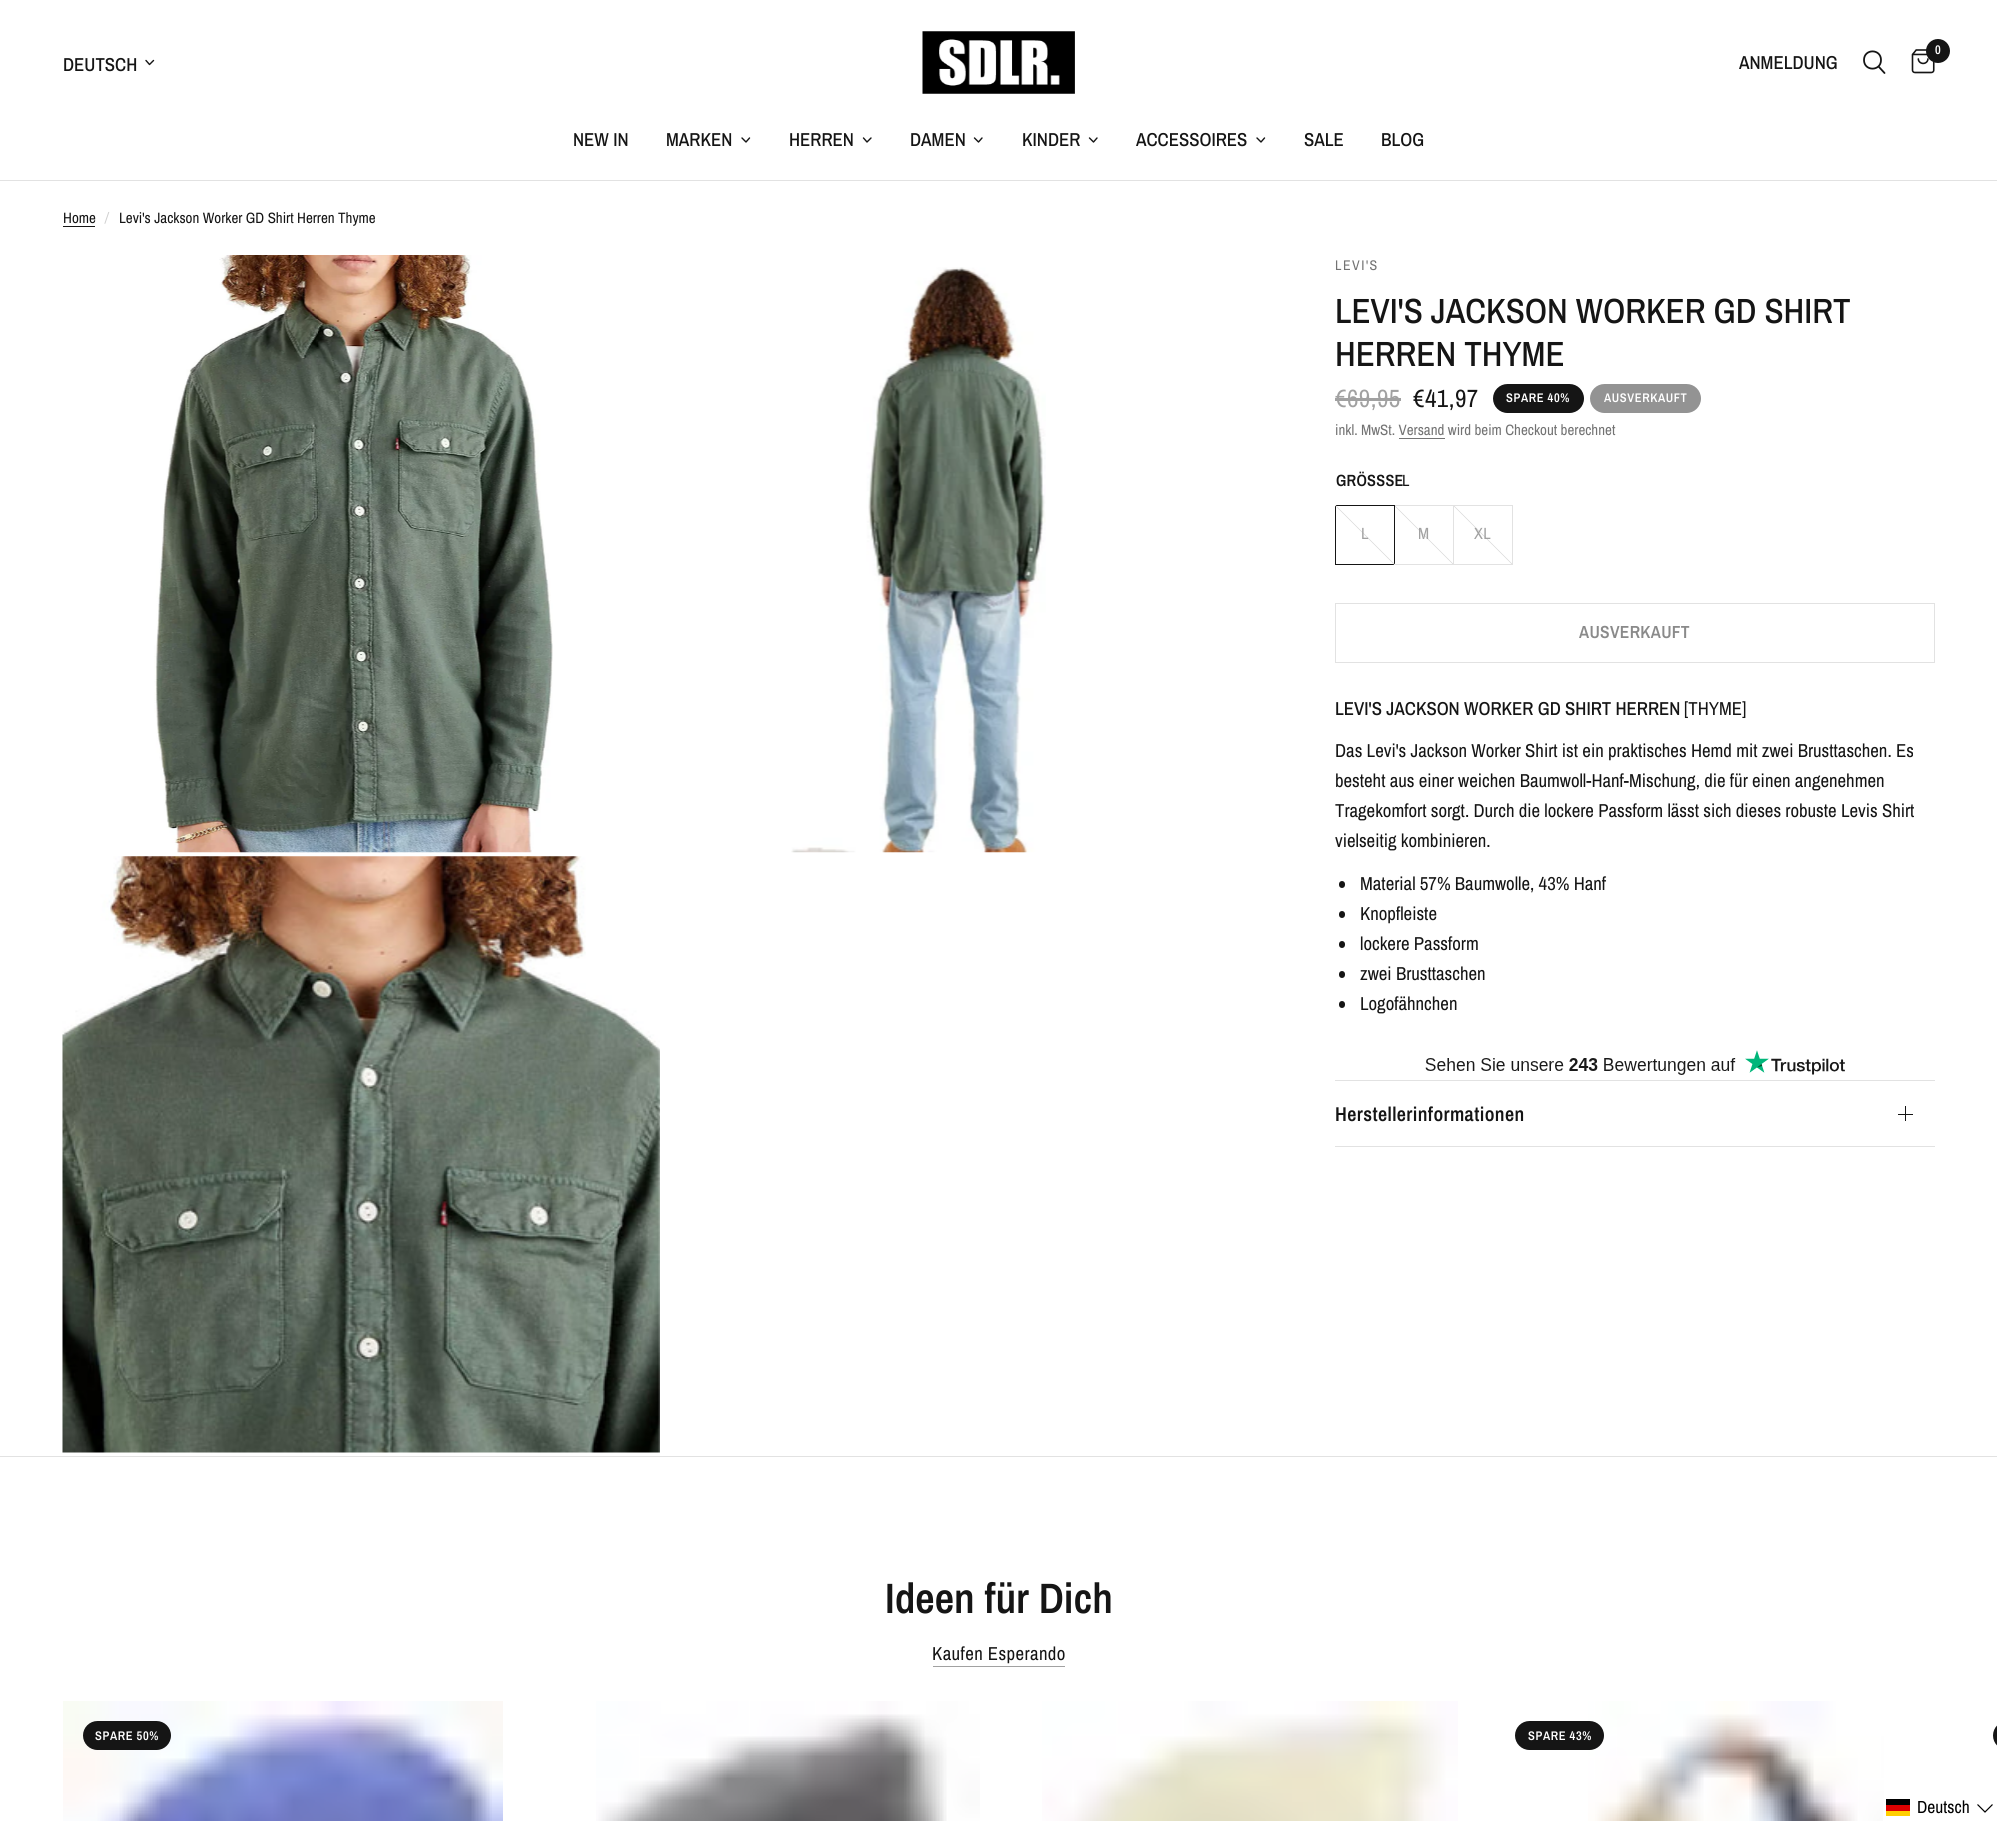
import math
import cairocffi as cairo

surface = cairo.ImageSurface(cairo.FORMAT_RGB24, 1997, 1821)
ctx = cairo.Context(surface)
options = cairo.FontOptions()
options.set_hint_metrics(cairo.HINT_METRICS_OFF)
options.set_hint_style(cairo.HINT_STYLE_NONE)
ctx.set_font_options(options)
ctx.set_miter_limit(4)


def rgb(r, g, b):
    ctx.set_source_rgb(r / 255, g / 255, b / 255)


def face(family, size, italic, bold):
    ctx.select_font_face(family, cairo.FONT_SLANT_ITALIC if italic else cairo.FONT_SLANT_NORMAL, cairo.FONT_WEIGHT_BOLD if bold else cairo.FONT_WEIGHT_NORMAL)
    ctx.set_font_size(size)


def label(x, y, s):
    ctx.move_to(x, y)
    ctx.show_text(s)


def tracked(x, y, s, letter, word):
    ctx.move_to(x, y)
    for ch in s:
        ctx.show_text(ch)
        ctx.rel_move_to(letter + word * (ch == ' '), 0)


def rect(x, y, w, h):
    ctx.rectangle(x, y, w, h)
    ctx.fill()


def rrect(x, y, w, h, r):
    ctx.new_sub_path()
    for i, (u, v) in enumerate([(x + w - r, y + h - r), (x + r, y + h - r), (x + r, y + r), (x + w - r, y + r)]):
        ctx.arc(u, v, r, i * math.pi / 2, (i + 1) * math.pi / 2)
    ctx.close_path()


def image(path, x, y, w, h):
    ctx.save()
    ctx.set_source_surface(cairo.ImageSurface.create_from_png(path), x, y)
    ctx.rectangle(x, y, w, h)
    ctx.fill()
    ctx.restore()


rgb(255, 255, 255)
ctx.paint()
rgb(226, 226, 226)
rect(0, 180, 1997, 1)
face('Archivo Narrow Medium', 18.75, 0, 0)
rgb(21, 21, 21)
label(63, 71, 'DEUTSCH')
ctx.new_path()
ctx.move_to(153.5, 60.5)
ctx.line_to(149.5, 64.5)
ctx.line_to(146, 60.5)
ctx.set_line_width(1.4)
ctx.set_line_cap(cairo.LINE_CAP_ROUND)
ctx.set_line_join(cairo.LINE_JOIN_ROUND)
ctx.stroke()
image('image0.png', 922, 31, 153, 63)
label(1739, 69, 'ANMELDUNG')
ctx.new_path()
ctx.move_to(1879, 67)
ctx.line_to(1884.5, 73)
ctx.move_to(1881, 60)
ctx.curve_to(1881, 71.5, 1864, 71.5, 1864, 60)
ctx.curve_to(1864, 48.5, 1881, 48.5, 1881, 60)
ctx.close_path()
ctx.set_line_width(1.8)
ctx.stroke()
image('image1.png', 1911, 49, 24, 25)
ctx.arc(1938, 51, 12, 0, 2 * math.pi)
ctx.fill()
face('Archivo Narrow SemiBold', 12.5, 0, 0)
rgb(255, 255, 255)
label(1935, 54, '0')
face('Archivo Narrow Medium', 18.75, 0, 0)
rgb(21, 21, 21)
label(573, 146, 'NEW IN')
label(666, 146, 'MARKEN')
ctx.new_path()
ctx.move_to(749.5, 138)
ctx.line_to(746, 142)
ctx.line_to(742, 138)
ctx.set_line_width(1.4)
ctx.stroke()
label(789, 146, 'HERREN')
ctx.new_path()
ctx.move_to(871, 138)
ctx.line_to(867, 142)
ctx.line_to(863.5, 138)
ctx.stroke()
label(910, 146, 'DAMEN')
ctx.new_path()
ctx.move_to(982, 138)
ctx.line_to(978.5, 142)
ctx.line_to(974.5, 138)
ctx.stroke()
label(1022, 146, 'KINDER')
ctx.new_path()
ctx.move_to(1097, 138)
ctx.line_to(1093.5, 142)
ctx.line_to(1089.5, 138)
ctx.stroke()
label(1136, 146, 'ACCESSOIRES')
ctx.new_path()
ctx.move_to(1264.5, 138)
ctx.line_to(1261, 142)
ctx.line_to(1257, 138)
ctx.stroke()
label(1304, 146, 'SALE')
label(1381, 146, 'BLOG')
face('Archivo Narrow', 15, 0, 0)
label(63, 223, 'Home')
rect(63, 226, 32, 1)
face('Archivo Narrow', 15, 1, 0)
rgb(208, 208, 208)
label(105, 223, '/')
face('Archivo Narrow', 15, 0, 0)
rgb(21, 21, 21)
label(119, 223, 'Levi\'s Jackson Worker GD Shirt Herren Thyme')
image('image2.png', 154, 255, 399, 598)
image('image3.png', 791, 267, 255, 586)
image('image4.png', 62, 856, 598, 597)
face('Archivo Narrow', 14, 0, 0)
rgb(115, 115, 115)
tracked(1335, 270, 'LEVI\'S', 1.5, 0)
face('Archivo Narrow Medium', 35, 0, 0)
rgb(21, 21, 21)
label(1335, 323, 'LEVI\'S JACKSON WORKER GD SHIRT')
label(1335, 366, 'HERREN THYME')
face('Archivo Narrow', 25, 0, 0)
rgb(161, 161, 161)
tracked(1335, 407, '€69,95', 0.5, 0)
rect(1335, 398, 66, 3)
rgb(21, 21, 21)
tracked(1413, 407, '€41,97', 0.5, 0)
rrect(1493, 384, 91, 29, 14.5)
ctx.fill()
face('Archivo Narrow SemiBold', 12.5, 0, 0)
rgb(255, 255, 255)
tracked(1506, 402, 'SPARE 40%', 0.6, 0)
rgb(147, 147, 147)
rrect(1590, 384, 111, 29, 14.5)
ctx.fill()
rgb(255, 255, 255)
tracked(1604, 402, 'AUSVERKAUFT', 0.6, 0)
face('Archivo Narrow', 15, 0, 0)
rgb(115, 115, 115)
label(1335, 435, 'inkl. MwSt. Versand wird beim Checkout berechnet')
rect(1399, 438, 46, 1)
face('Archivo Narrow SemiBold', 16.25, 0, 0)
rgb(21, 21, 21)
tracked(1336, 486, 'GRÖSSSE', 0.25, 0)
face('Archivo Narrow', 16.25, 0, 0)
tracked(1402, 486, 'L', 0.25, 0)
ctx.rectangle(1394.5, 505.5, 59, 59)
rgb(226, 226, 226)
ctx.set_line_width(1)
ctx.set_line_cap(cairo.LINE_CAP_BUTT)
ctx.set_line_join(cairo.LINE_JOIN_MITER)
ctx.stroke()
ctx.rectangle(1335.5, 505.5, 59, 59)
rgb(21, 21, 21)
ctx.stroke()
gradient = cairo.LinearGradient(1395, 505, 1335, 565)
gradient.add_color_stop_rgba(0.49, 0.886, 0.886, 0.886, 0)
gradient.add_color_stop_rgba(0.5, 0.886, 0.886, 0.886, 1)
gradient.add_color_stop_rgba(0.51, 0.886, 0.886, 0.886, 0)
ctx.set_source(gradient)
rect(1335, 505, 60, 60)
rgb(161, 161, 161)
tracked(1361, 539, 'L', 0.25, 0)
gradient = cairo.LinearGradient(1454, 505, 1394, 565)
gradient.add_color_stop_rgba(0.49, 0.886, 0.886, 0.886, 0)
gradient.add_color_stop_rgba(0.5, 0.886, 0.886, 0.886, 1)
gradient.add_color_stop_rgba(0.51, 0.886, 0.886, 0.886, 0)
ctx.set_source(gradient)
rect(1395, 506, 58, 58)
rgb(161, 161, 161)
tracked(1418, 539, 'M', 0.25, 0)
ctx.rectangle(1453.5, 505.5, 59, 59)
rgb(226, 226, 226)
ctx.stroke()
gradient = cairo.LinearGradient(1513, 505, 1453, 565)
gradient.add_color_stop_rgba(0.49, 0.886, 0.886, 0.886, 0)
gradient.add_color_stop_rgba(0.5, 0.886, 0.886, 0.886, 1)
gradient.add_color_stop_rgba(0.51, 0.886, 0.886, 0.886, 0)
ctx.set_source(gradient)
rect(1454, 506, 58, 58)
rgb(161, 161, 161)
tracked(1474, 539, 'XL', 0.25, 0)
ctx.rectangle(1335.5, 603.5, 599, 59)
rgb(226, 226, 226)
ctx.stroke()
face('Archivo Narrow SemiBold', 17.5, 0, 0)
rgb(138, 138, 138)
tracked(1579, 638, 'AUSVERKAUFT', 0.3, 0)
face('Archivo Narrow Medium', 18.75, 0, 0)
rgb(21, 21, 21)
label(1335, 715, 'LEVI\'S JACKSON WORKER GD SHIRT HERREN')
face('Archivo Narrow', 18.75, 0, 0)
label(1684, 715, '[THYME]')
label(1335, 757, 'Das Levi\'s Jackson Worker Shirt ist ein praktisches Hemd mit zwei Brusttaschen. Es')
label(1335, 787, 'besteht aus einer weichen Baumwoll-Hanf-Mischung, die für einen angenehmen')
label(1335, 817, 'Tragekomfort sorgt. Durch die lockere Passform lässt sich dieses robuste Levis Shirt')
label(1335, 847, 'vielseitig kombinieren.')
rrect(1339, 881, 6, 7, 3)
ctx.fill()
label(1360, 890, 'Material 57% Baumwolle, 43% Hanf')
rrect(1339, 911, 6, 7, 3)
ctx.fill()
label(1360, 920, 'Knopfleiste')
rrect(1339, 941, 6, 7, 3)
ctx.fill()
label(1360, 950, 'lockere Passform')
rrect(1339, 971, 6, 7, 3)
ctx.fill()
label(1360, 980, 'zwei Brusttaschen')
rrect(1339, 1001, 6, 7, 3)
ctx.fill()
label(1360, 1010, 'Logofähnchen')
image('image5.png', 1425, 1050, 420, 25)
rgb(226, 226, 226)
rect(1335, 1080, 600, 1)
rect(1335, 1146, 600, 1)
face('Archivo Narrow SemiBold', 20, 0, 0)
rgb(21, 21, 21)
tracked(1335, 1121, 'Herstellerinformationen', 0.4, 0)
rect(1905, 1106, 1, 15)
rect(1898, 1114, 15, 1)
rgb(226, 226, 226)
rect(0, 1456, 1997, 1)
face('Archivo Narrow SemiBold', 42.5, 0, 0)
rgb(21, 21, 21)
label(885, 1613, 'Ideen für Dich')
face('Archivo Narrow', 18.75, 0, 0)
tracked(932, 1660, 'Kaufen Esperando', 0.4, 0)
rgb(161, 161, 161)
rect(933, 1666, 132, 1)
image('image6.png', 63, 1701, 440, 120)
rgb(21, 21, 21)
rrect(83, 1721, 88, 29, 14.5)
ctx.fill()
face('Archivo Narrow SemiBold', 12.5, 0, 0)
rgb(255, 255, 255)
tracked(95, 1740, 'SPARE 50%', 0.6, 0)
image('image7.png', 596, 1701, 384, 120)
image('image8.png', 1042, 1701, 416, 120)
image('image9.png', 1588, 1701, 296, 120)
rgb(21, 21, 21)
rrect(1515, 1721, 89, 29, 14.5)
ctx.fill()
rgb(255, 255, 255)
tracked(1528, 1740, 'SPARE 43%', 0.6, 0)
rgb(21, 21, 21)
ctx.new_path()
ctx.move_to(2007.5, 1721)
ctx.line_to(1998, 1721)
ctx.line_to(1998, 1750)
ctx.line_to(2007.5, 1750)
ctx.curve_to(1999.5, 1750, 1993, 1743.5, 1993, 1735.5)
ctx.curve_to(1993, 1727.5, 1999.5, 1721, 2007.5, 1721)
ctx.close_path()
ctx.fill()
rgb(255, 255, 255)
rect(1883, 1802, 1, 19)
rgb(255, 206, 0)
rect(1886, 1811, 24, 5)
rgb(0, 0, 0)
rect(1886, 1799, 24, 6)
rgb(221, 0, 0)
rect(1886, 1805, 24, 6)
face('Archivo Narrow', 17.5, 0, 0)
rgb(0, 0, 0)
label(1917, 1813, 'Deutsch')
ctx.new_path()
ctx.move_to(1977.5, 1804.5)
ctx.line_to(1985, 1812)
ctx.line_to(1992.5, 1804.5)
ctx.set_line_width(1.2)
ctx.stroke()
surface.write_to_png('render.png')
